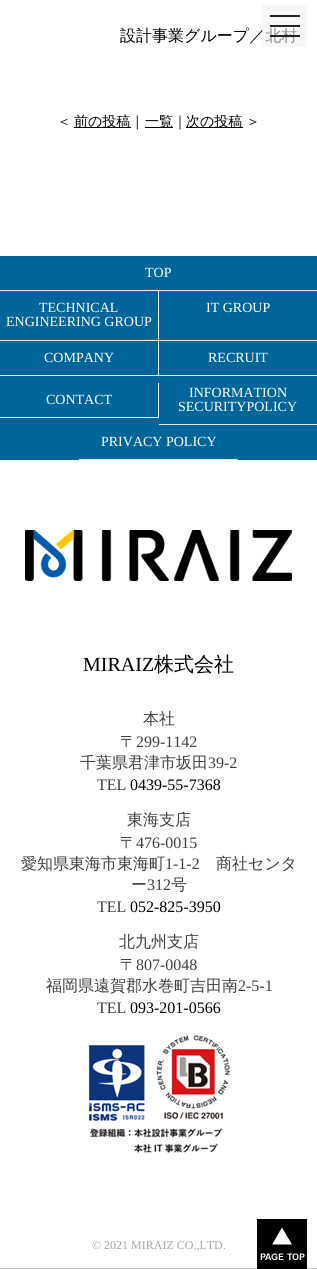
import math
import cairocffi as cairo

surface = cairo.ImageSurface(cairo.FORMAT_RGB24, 317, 1269)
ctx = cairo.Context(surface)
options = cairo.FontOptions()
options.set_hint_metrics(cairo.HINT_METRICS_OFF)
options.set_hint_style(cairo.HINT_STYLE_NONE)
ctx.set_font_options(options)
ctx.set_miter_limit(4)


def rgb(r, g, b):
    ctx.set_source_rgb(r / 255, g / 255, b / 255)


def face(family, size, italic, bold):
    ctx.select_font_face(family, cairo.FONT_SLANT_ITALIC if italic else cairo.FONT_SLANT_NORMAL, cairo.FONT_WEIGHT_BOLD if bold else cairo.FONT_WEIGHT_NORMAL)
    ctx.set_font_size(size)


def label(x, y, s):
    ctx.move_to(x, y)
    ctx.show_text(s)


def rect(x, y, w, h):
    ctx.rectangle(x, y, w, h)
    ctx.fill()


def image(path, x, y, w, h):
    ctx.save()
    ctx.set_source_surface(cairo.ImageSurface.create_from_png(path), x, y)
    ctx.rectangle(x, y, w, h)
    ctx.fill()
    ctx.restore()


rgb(255, 255, 255)
ctx.paint()
face('WenQuanYi Zen Hei Medium', 16, 0, 0)
rgb(0, 0, 0)
label(120, 41, '設計事業グループ／北村')
ctx.set_source_rgba(0.949, 0.949, 0.949, 0.6)
rect(262, 5, 45, 42)
rgb(34, 34, 34)
rect(270, 25, 30, 2)
rect(270, 15, 30, 2)
rect(270, 35, 30, 2)
face('WenQuanYi Zen Hei Medium', 14, 0, 0)
rgb(0, 0, 0)
label(57, 126, '＜')
rect(74, 127, 57, 1)
label(74, 126, '前の投稿｜')
rect(145, 127, 28, 1)
label(145, 126, '一覧｜')
rect(186, 127, 57, 1)
label(186, 126, '次の投稿')
label(246, 126, '＞')
rgb(0, 102, 153)
rect(0, 256, 317, 204)
rgb(234, 234, 234)
rect(0, 290, 317, 1)
face('Liberation Serif', 14, 0, 0)
rgb(255, 255, 255)
label(145, 277, 'TOP')
rect(158, 291, 1, 85)
rgb(234, 234, 234)
rect(0, 340, 317, 1)
rgb(255, 255, 255)
label(39, 312, 'TECHNICAL')
label(6, 326, 'ENGINEERING GROUP')
label(206, 312, 'IT GROUP')
rgb(234, 234, 234)
rect(0, 375, 317, 1)
rgb(255, 255, 255)
label(44, 362, 'COMPANY')
label(208, 362, 'RECRUIT')
rect(158, 383, 1, 35)
rgb(234, 234, 234)
rect(0, 417, 159, 1)
rgb(255, 255, 255)
label(46, 404, 'CONTACT')
rgb(234, 234, 234)
rect(159, 424, 158, 1)
rgb(255, 255, 255)
label(189, 397, 'INFORMATION')
label(178, 411, 'SECURITYPOLICY')
rgb(234, 234, 234)
rect(79, 459, 159, 1)
rgb(255, 255, 255)
label(101, 446, 'PRIVACY POLICY')
image('image0.png', 25, 530, 267, 51)
face('Liberation Serif', 20, 0, 0)
rgb(0, 0, 0)
label(83, 671, 'MIRAIZ')
face('WenQuanYi Zen Hei Medium', 20, 0, 0)
label(154, 671, '株式会社')
face('WenQuanYi Zen Hei Medium', 16, 0, 0)
rgb(64, 64, 64)
label(143, 724, '本社')
label(120, 747, '〒')
face('Liberation Serif', 16, 0, 0)
label(136, 747, '299-1142')
face('WenQuanYi Zen Hei Medium', 16, 0, 0)
label(80, 768, '千葉県君津市坂田')
face('Liberation Serif', 16, 0, 0)
label(208, 768, '39-2')
label(97, 790, 'TEL')
rgb(0, 0, 0)
label(130, 790, '0439-55-7368')
face('WenQuanYi Zen Hei Medium', 16, 0, 0)
rgb(64, 64, 64)
label(127, 825, '東海支店')
label(120, 848, '〒')
face('Liberation Serif', 16, 0, 0)
label(136, 848, '476-0015')
face('WenQuanYi Zen Hei Medium', 16, 0, 0)
label(21, 869, '愛知県東海市東海町')
face('Liberation Serif', 16, 0, 0)
label(165, 869, '1-1-2')
face('WenQuanYi Zen Hei Medium', 16, 0, 0)
label(216, 869, '商社センタ')
label(131, 890, 'ー')
face('Liberation Serif', 16, 0, 0)
label(147, 890, '312')
face('WenQuanYi Zen Hei Medium', 16, 0, 0)
label(171, 890, '号')
face('Liberation Serif', 16, 0, 0)
label(97, 912, 'TEL')
rgb(0, 0, 0)
label(130, 912, '052-825-3950')
face('WenQuanYi Zen Hei Medium', 16, 0, 0)
rgb(64, 64, 64)
label(119, 947, '北九州支店')
label(120, 970, '〒')
face('Liberation Serif', 16, 0, 0)
label(136, 970, '807-0048')
face('WenQuanYi Zen Hei Medium', 16, 0, 0)
label(46, 991, '福岡県遠賀郡水巻町吉田南')
face('Liberation Serif', 16, 0, 0)
label(238, 991, '2-5-1')
label(97, 1013, 'TEL')
rgb(0, 0, 0)
label(130, 1013, '093-201-0566')
image('image1.png', 88, 1035, 142, 118)
rgb(191, 191, 191)
rect(0, 1268, 317, 1)
face('Liberation Serif', 12, 0, 0)
rgb(166, 166, 166)
label(92, 1249, '© 2021 MIRAIZ CO.,LTD.')
rgb(0, 0, 0)
rect(257, 1219, 50, 50)
image('image2.png', 260, 1227, 45, 33)
surface.write_to_png('render.png')
